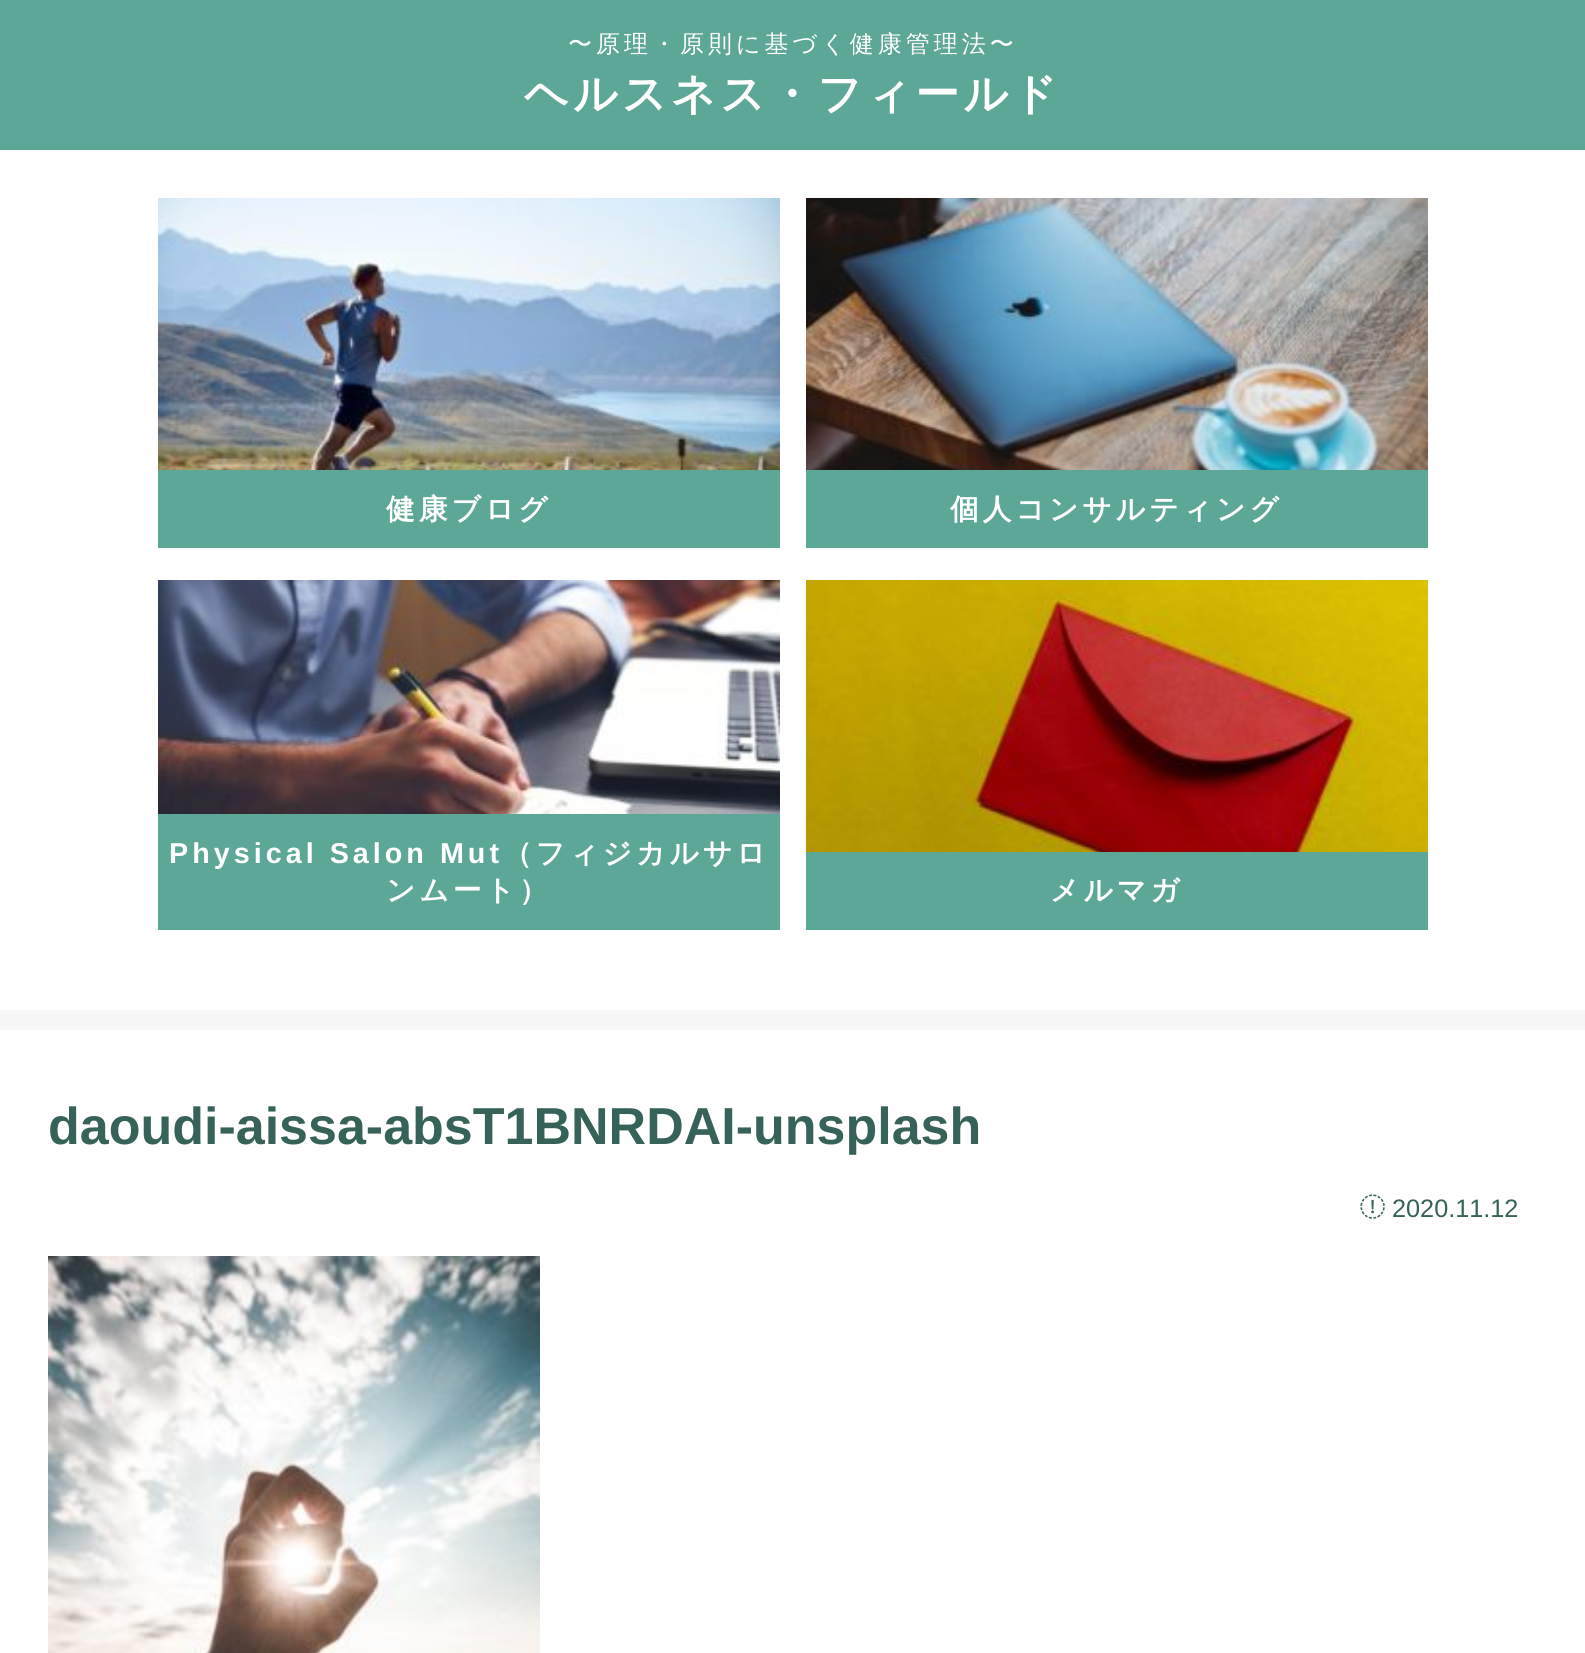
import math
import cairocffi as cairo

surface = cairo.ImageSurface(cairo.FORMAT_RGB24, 1585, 1653)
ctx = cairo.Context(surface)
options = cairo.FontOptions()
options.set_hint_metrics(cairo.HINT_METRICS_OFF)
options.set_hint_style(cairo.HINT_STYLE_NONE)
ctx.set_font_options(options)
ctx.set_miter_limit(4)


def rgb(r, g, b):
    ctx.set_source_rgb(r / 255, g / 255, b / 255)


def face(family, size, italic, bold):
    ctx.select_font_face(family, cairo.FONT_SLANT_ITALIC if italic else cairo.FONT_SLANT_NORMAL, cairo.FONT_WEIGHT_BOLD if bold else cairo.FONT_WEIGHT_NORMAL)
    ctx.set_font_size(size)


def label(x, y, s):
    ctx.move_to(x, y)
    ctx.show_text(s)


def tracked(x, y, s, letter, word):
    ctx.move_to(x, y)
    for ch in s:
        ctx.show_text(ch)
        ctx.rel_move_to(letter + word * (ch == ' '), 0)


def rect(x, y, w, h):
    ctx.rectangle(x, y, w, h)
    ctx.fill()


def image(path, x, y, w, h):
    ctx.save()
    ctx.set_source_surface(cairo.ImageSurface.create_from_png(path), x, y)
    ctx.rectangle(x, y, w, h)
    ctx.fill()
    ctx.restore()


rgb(247, 247, 247)
ctx.paint()
rgb(93, 167, 151)
rect(0, 0, 1585, 150)
face('WenQuanYi Zen Hei Medium', 24, 0, 0)
rgb(255, 255, 255)
tracked(568, 52, '〜原理・原則に基づく健康管理法〜', 4, 0)
face('WenQuanYi Zen Hei', 44, 0, 1)
tracked(524, 109, 'ヘルスネス・フィールド', 4, 0)
rect(0, 150, 1585, 860)
image('image0.png', 158, 198, 622, 272)
rgb(93, 167, 151)
rect(158, 470, 622, 78)
face('WenQuanYi Zen Hei', 28.75, 0, 1)
rgb(255, 255, 255)
tracked(386, 519, '健康ブログ', 4, 0)
image('image1.png', 806, 198, 622, 272)
rgb(93, 167, 151)
rect(806, 470, 622, 78)
rgb(255, 255, 255)
tracked(950, 519, '個人コンサルティング', 4, 0)
image('image2.png', 158, 580, 622, 234)
rgb(93, 167, 151)
rect(158, 814, 622, 116)
face('Liberation Sans', 28.75, 0, 1)
rgb(255, 255, 255)
tracked(169, 863, 'Physical Salon Mut', 4, 0)
face('WenQuanYi Zen Hei', 28.75, 0, 1)
tracked(503, 863, '（フィジカルサロ', 4, 0)
tracked(386, 900, 'ンムート）', 4, 0)
image('image3.png', 806, 580, 622, 272)
rgb(93, 167, 151)
rect(806, 852, 622, 78)
rgb(255, 255, 255)
tracked(1050, 900, 'メルマガ', 4, 0)
rect(0, 1030, 1585, 623)
face('Liberation Sans', 52, 0, 1)
rgb(54, 98, 89)
label(48, 1144, 'daoudi-aissa-absT1BNRDAI-unsplash')
image('image4.png', 1360, 1194, 25, 25)
face('Liberation Sans', 25.25, 0, 0)
label(1392, 1217, '2020.11.12')
image('image5.png', 48, 1256, 492, 397)
surface.write_to_png('render.png')
